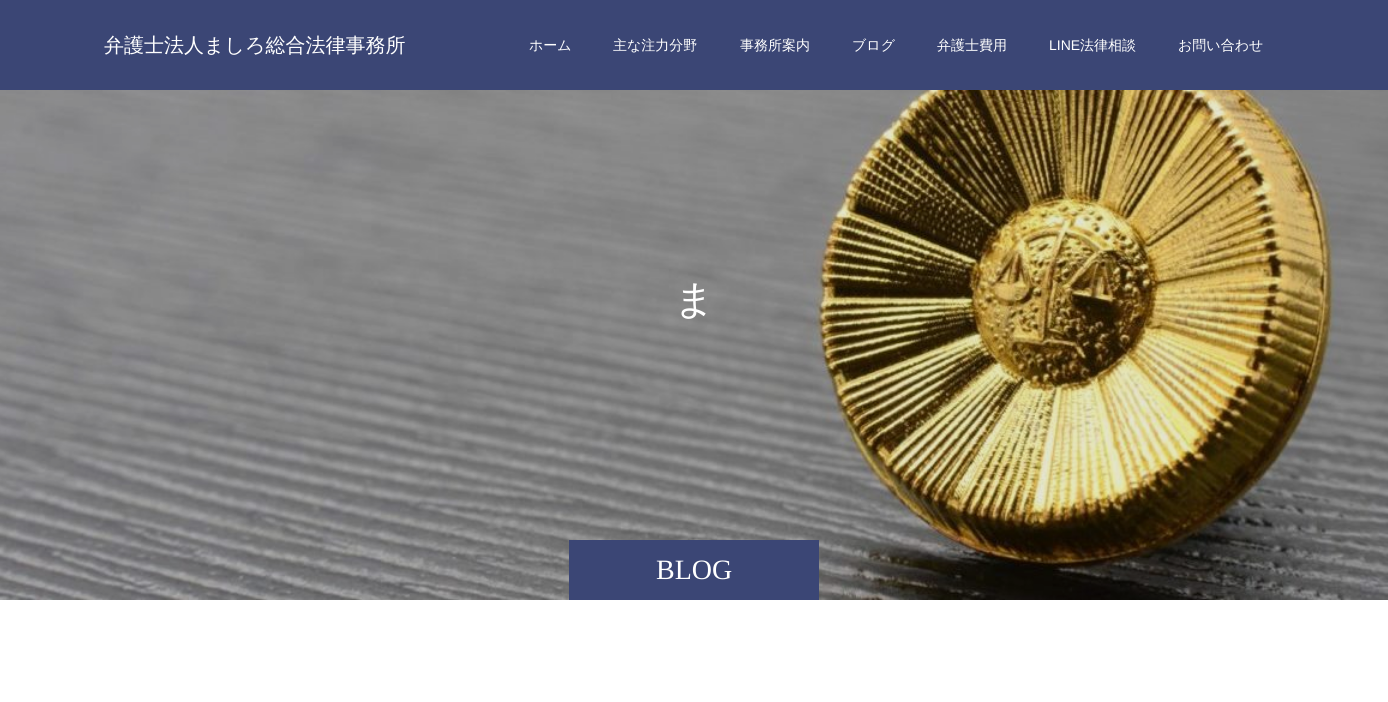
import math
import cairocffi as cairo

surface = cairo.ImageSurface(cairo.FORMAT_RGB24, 1388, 702)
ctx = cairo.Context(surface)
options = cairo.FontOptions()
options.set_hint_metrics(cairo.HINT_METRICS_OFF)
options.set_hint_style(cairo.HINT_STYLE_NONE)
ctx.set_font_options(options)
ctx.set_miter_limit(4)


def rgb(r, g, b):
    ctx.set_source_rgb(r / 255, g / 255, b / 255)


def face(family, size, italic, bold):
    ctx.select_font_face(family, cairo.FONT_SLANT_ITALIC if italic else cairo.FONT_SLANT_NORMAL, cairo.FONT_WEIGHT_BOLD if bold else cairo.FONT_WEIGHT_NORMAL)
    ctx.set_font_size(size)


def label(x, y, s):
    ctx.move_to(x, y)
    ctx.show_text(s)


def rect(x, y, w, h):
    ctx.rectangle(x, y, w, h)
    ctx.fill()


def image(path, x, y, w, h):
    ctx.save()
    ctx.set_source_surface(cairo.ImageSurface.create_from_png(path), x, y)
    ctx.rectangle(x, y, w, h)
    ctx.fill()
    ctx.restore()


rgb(255, 255, 255)
ctx.paint()
rgb(59, 70, 117)
rect(0, 0, 1388, 90)
face('WenQuanYi Zen Hei Medium', 20, 0, 0)
rgb(255, 255, 255)
label(104, 52, '弁護士法人ましろ総合法律事務所')
face('WenQuanYi Zen Hei Medium', 14, 0, 0)
label(529, 50, 'ホーム')
label(613, 50, '主な注力分野')
label(740, 50, '事務所案内')
label(852, 50, 'ブログ')
label(937, 50, '弁護士費用')
face('Liberation Sans', 14, 0, 0)
label(1049, 50, 'LINE')
face('WenQuanYi Zen Hei Medium', 14, 0, 0)
label(1080, 50, '法律相談')
label(1178, 50, 'お問い合わせ')
image('image0.png', 0, 90, 1388, 510)
face('WenQuanYi Zen Hei Medium', 40, 0, 0)
label(674, 313, 'ま')
rgb(59, 70, 117)
rect(569, 540, 250, 60)
face('Liberation Serif', 28, 0, 0)
rgb(255, 255, 255)
label(656, 579, 'BLOG')
surface.write_to_png('render.png')
